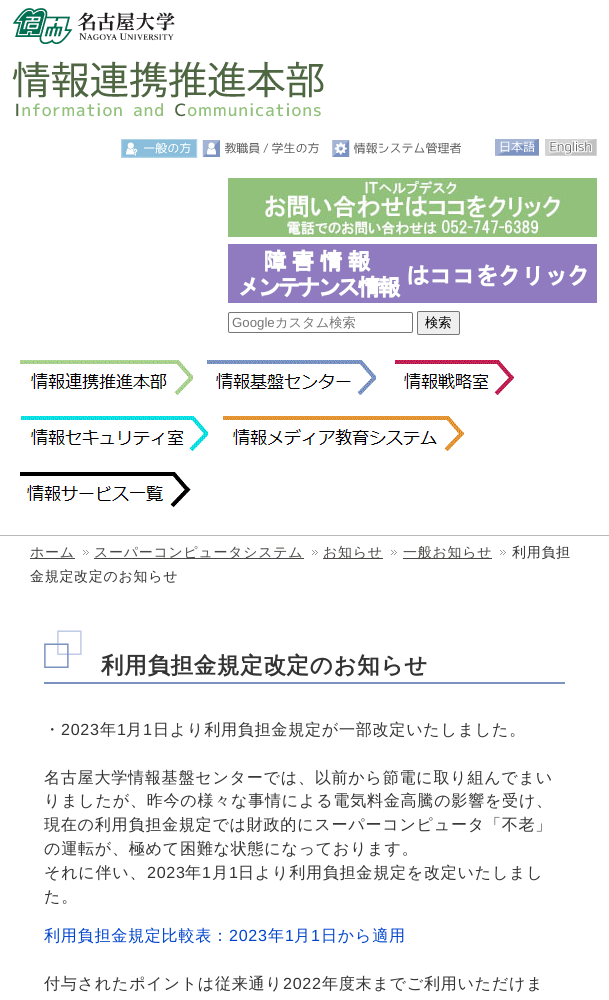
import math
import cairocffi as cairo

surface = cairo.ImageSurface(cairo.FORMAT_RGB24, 609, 1000)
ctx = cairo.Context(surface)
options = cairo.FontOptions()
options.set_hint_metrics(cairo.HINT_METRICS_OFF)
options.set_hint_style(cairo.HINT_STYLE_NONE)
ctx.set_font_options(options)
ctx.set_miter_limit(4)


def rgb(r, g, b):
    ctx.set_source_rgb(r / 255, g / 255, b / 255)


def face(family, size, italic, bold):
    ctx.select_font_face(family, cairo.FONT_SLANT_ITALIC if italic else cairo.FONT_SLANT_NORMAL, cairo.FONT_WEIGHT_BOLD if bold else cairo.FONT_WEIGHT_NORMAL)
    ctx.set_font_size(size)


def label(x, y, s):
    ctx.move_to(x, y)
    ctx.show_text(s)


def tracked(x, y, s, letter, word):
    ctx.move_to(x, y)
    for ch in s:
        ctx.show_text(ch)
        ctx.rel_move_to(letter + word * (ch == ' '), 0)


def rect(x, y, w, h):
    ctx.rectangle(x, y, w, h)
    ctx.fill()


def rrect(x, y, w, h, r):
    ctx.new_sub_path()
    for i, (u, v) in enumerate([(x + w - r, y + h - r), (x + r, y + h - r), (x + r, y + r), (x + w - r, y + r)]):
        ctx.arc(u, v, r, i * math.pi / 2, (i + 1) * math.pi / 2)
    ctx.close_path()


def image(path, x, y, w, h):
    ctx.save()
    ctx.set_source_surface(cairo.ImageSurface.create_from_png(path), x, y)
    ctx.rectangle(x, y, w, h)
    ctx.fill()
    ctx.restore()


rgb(255, 255, 255)
ctx.paint()
rgb(186, 186, 186)
rect(0, 535, 609, 1)
image('image0.png', 12, 8, 163, 36)
image('image1.png', 12, 61, 312, 56)
image('image2.png', 121, 139, 77, 19)
image('image3.png', 202, 140, 117, 17)
image('image4.png', 332, 140, 129, 17)
image('image5.png', 495, 139, 44, 17)
image('image6.png', 545, 139, 52, 17)
image('image7.png', 228, 178, 369, 59)
image('image8.png', 228, 244, 369, 59)
rrect(228.5, 312.5, 184, 20, 1.5)
rgb(118, 118, 118)
ctx.set_line_width(1)
ctx.stroke()
face('Liberation Sans', 13.25, 0, 0)
rgb(117, 117, 117)
label(232, 327, 'Google')
face('WenQuanYi Zen Hei Medium', 13.25, 0, 0)
label(275, 327, 'カスタム検索')
rgb(239, 239, 239)
rrect(417.5, 311.5, 42, 23, 1.5)
ctx.fill_preserve()
rgb(118, 118, 118)
ctx.stroke()
rgb(0, 0, 0)
label(425, 327, '検索')
image('image9.png', 20, 360, 173, 35)
image('image10.png', 207, 360, 169, 35)
image('image11.png', 395, 360, 119, 35)
image('image12.png', 21, 416, 187, 35)
image('image13.png', 223, 416, 241, 35)
image('image14.png', 20, 472, 171, 35)
rgb(73, 72, 70)
rect(30, 558, 45, 1)
face('WenQuanYi Zen Hei Medium', 14, 0, 0)
tracked(30, 557, 'ホーム', 0.7, 0)
image('image15.png', 83, 550, 6, 5)
rect(94, 558, 210, 1)
tracked(94, 557, 'スーパーコンピュータシステム', 0.7, 0)
image('image15.png', 312, 550, 6, 5)
rect(323, 558, 60, 1)
tracked(323, 557, 'お知らせ', 0.7, 0)
image('image15.png', 391, 550, 6, 5)
rect(403, 558, 89, 1)
tracked(403, 557, '一般お知らせ', 0.7, 0)
image('image15.png', 500, 550, 6, 5)
rgb(51, 51, 51)
tracked(512, 557, '利用負担', 0.7, 0)
tracked(30, 581, '金規定改定のお知らせ', 0.7, 0)
rgb(124, 147, 194)
rect(44, 682, 521, 2)
face('Liberation Sans', 41, 0, 1)
rgb(191, 203, 231)
tracked(57, 655, '□', 0.7, 0)
rgb(124, 147, 194)
tracked(44, 668, '□', 0.7, 0)
face('WenQuanYi Zen Hei', 22.5, 0, 1)
rgb(51, 51, 51)
tracked(101, 673, '利用負担金規定改定のお知らせ', 0.7, 0)
face('WenQuanYi Zen Hei Medium', 16.1, 0, 0)
tracked(44, 735, '・', 0.7, 0)
face('Liberation Sans', 16.1, 0, 0)
tracked(61, 735, '2023', 0.7, 0)
face('WenQuanYi Zen Hei Medium', 16.1, 0, 0)
tracked(100, 735, '年', 0.7, 0)
face('Liberation Sans', 16.1, 0, 0)
tracked(117, 735, '1', 0.7, 0)
face('WenQuanYi Zen Hei Medium', 16.1, 0, 0)
tracked(126, 735, '月', 0.7, 0)
face('Liberation Sans', 16.1, 0, 0)
tracked(143, 735, '1', 0.7, 0)
face('WenQuanYi Zen Hei Medium', 16.1, 0, 0)
tracked(153, 735, '日より利用負担金規定が一部改定いたしました。', 0.7, 0)
tracked(44, 783, '名古屋大学情報基盤センターでは、以前から節電に取り組んでまい', 0.7, 0)
tracked(44, 806, 'りましたが、昨今の様々な事情による電気料金高騰の影響を受け、', 0.7, 0)
tracked(44, 830, '現在の利用負担金規定では財政的にスーパーコンピュータ「不老」', 0.7, 0)
tracked(44, 854, 'の運転が、極めて困難な状態になっております。', 0.7, 0)
tracked(44, 878, 'それに伴い、', 0.7, 0)
face('Liberation Sans', 16.1, 0, 0)
tracked(147, 878, '2023', 0.7, 0)
face('WenQuanYi Zen Hei Medium', 16.1, 0, 0)
tracked(185, 878, '年', 0.7, 0)
face('Liberation Sans', 16.1, 0, 0)
tracked(202, 878, '1', 0.7, 0)
face('WenQuanYi Zen Hei Medium', 16.1, 0, 0)
tracked(212, 878, '月', 0.7, 0)
face('Liberation Sans', 16.1, 0, 0)
tracked(229, 878, '1', 0.7, 0)
face('WenQuanYi Zen Hei Medium', 16.1, 0, 0)
tracked(238, 878, '日より利用負担金規定を改定いたしまし', 0.7, 0)
tracked(44, 902, 'た。', 0.7, 0)
rgb(0, 68, 204)
tracked(44, 941, '利用負担金規定比較表：', 0.7, 0)
face('Liberation Sans', 16.1, 0, 0)
tracked(229, 941, '2023', 0.7, 0)
face('WenQuanYi Zen Hei Medium', 16.1, 0, 0)
tracked(268, 941, '年', 0.7, 0)
face('Liberation Sans', 16.1, 0, 0)
tracked(285, 941, '1', 0.7, 0)
face('WenQuanYi Zen Hei Medium', 16.1, 0, 0)
tracked(294, 941, '月', 0.7, 0)
face('Liberation Sans', 16.1, 0, 0)
tracked(311, 941, '1', 0.7, 0)
face('WenQuanYi Zen Hei Medium', 16.1, 0, 0)
tracked(321, 941, '日から適用', 0.7, 0)
rgb(51, 51, 51)
tracked(44, 989, '付与されたポイントは従来通り', 0.7, 0)
face('Liberation Sans', 16.1, 0, 0)
tracked(283, 989, '2022', 0.7, 0)
face('WenQuanYi Zen Hei Medium', 16.1, 0, 0)
tracked(322, 989, '年度末までご利用いただけま', 0.7, 0)
surface.write_to_png('render.png')
